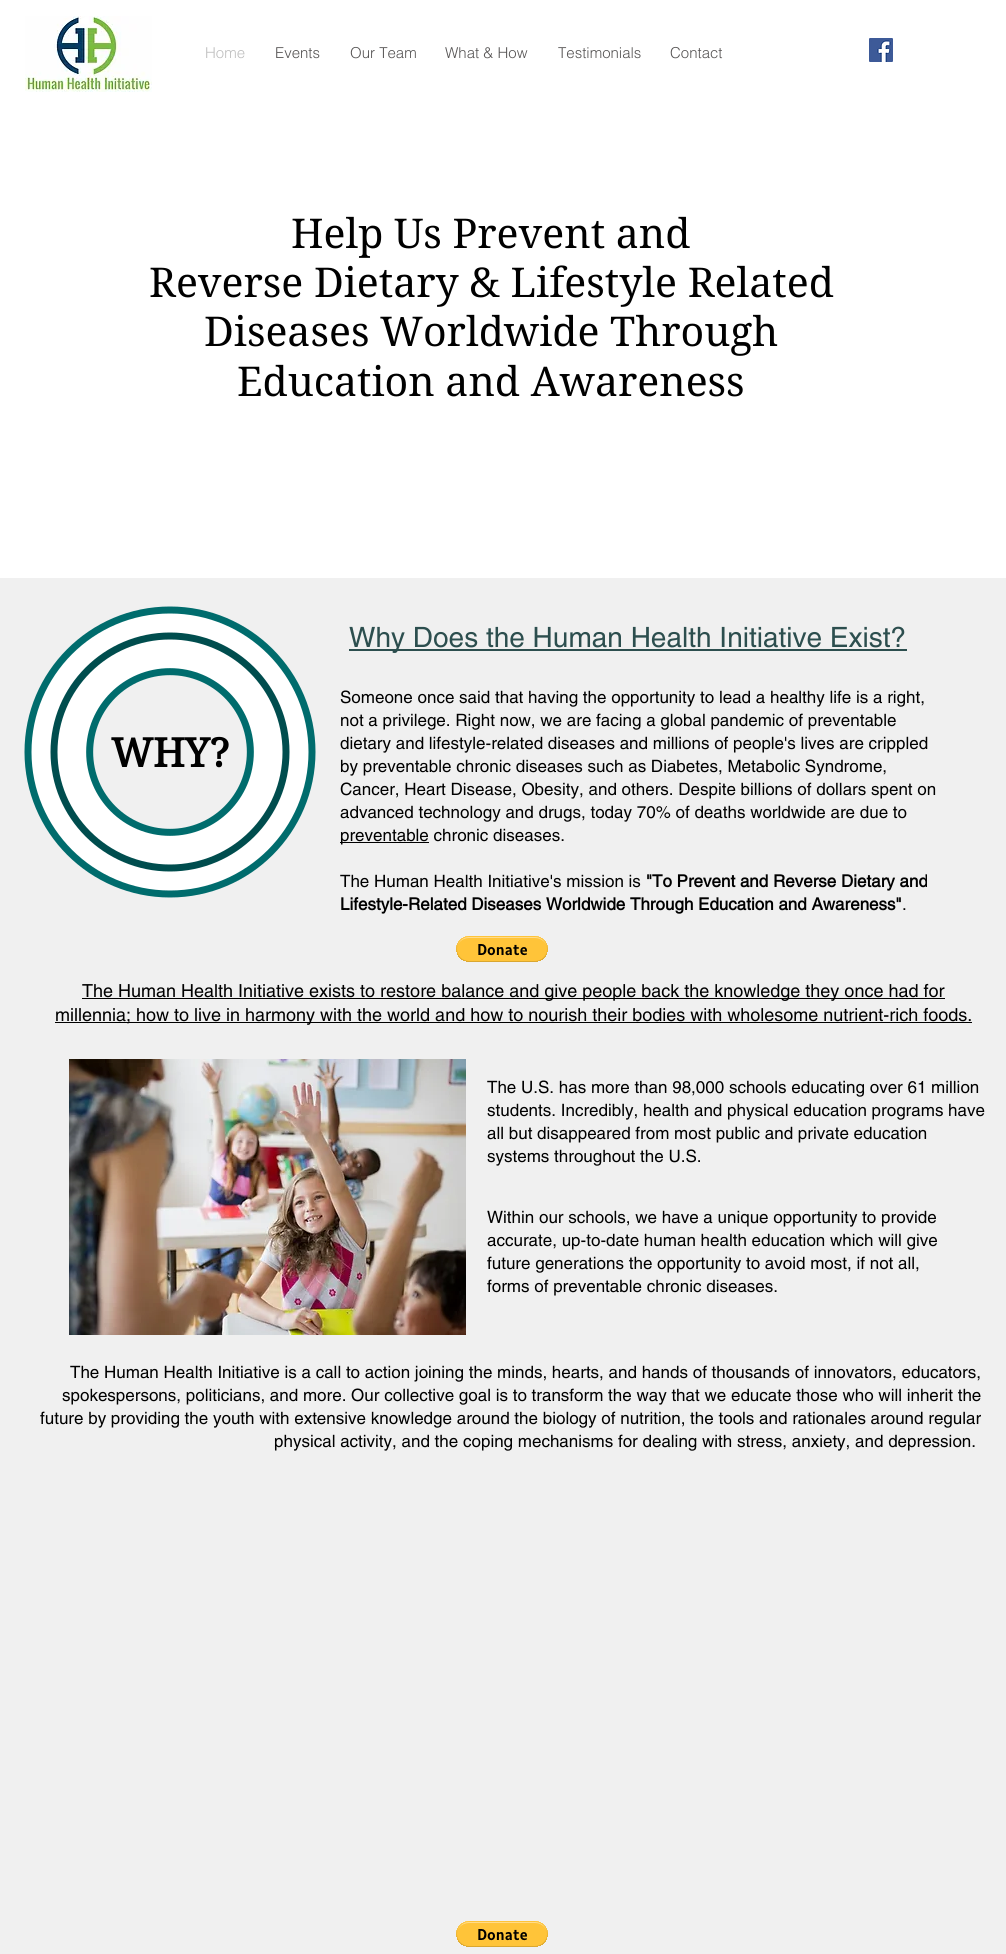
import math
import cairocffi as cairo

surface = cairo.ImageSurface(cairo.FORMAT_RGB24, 1006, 1954)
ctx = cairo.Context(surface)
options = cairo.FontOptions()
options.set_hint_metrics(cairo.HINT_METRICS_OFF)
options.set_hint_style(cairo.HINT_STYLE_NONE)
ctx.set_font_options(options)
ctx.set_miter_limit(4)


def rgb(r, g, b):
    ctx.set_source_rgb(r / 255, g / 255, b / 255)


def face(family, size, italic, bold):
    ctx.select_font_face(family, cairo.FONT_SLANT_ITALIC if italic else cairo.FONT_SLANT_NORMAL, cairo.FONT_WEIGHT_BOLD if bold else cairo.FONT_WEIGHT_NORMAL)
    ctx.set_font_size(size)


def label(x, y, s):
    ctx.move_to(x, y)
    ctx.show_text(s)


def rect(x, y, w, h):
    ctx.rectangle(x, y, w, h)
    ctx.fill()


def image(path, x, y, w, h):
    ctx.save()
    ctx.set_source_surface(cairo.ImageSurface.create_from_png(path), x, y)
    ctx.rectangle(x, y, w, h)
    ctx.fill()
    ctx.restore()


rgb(240, 240, 240)
ctx.paint()
rgb(255, 255, 255)
rect(0, 0, 1006, 578)
image('image0.png', 25, 16, 127, 76)
face('helvetica Light', 15, 0, 0)
rgb(190, 190, 190)
label(205, 58, 'Home')
rgb(85, 83, 83)
label(275, 58, 'Events')
label(350, 58, 'Our Team')
label(445, 58, 'What & How')
label(558, 58, 'Testimonials')
label(670, 58, 'Contact')
image('image1.png', 869, 38, 24, 24)
face('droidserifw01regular', 41, 0, 0)
rgb(0, 0, 0)
label(291, 248, 'Help Us Prevent and')
label(149, 297, 'Reverse Dietary & Lifestyle Related')
label(204, 346, 'Diseases Worldwide Through')
label(237, 396, 'Education and Awareness')
image('image2.png', 24, 606, 292, 292)
rgb(44, 78, 78)
rect(349, 649, 558, 2)
face('helvetica', 28, 0, 0)
label(349, 647, 'Why Does the Human Health Initiative Exist?')
ctx.new_path()
ctx.move_to(286, 752)
ctx.curve_to(286, 816, 234, 868, 170, 868)
ctx.curve_to(106, 868, 54, 816, 54, 752)
ctx.curve_to(54, 688, 106, 636, 170, 636)
ctx.curve_to(234, 636, 286, 688, 286, 752)
ctx.close_path()
rgb(0, 77, 78)
ctx.set_line_width(7)
ctx.stroke()
face('helvetica', 17, 0, 0)
rgb(0, 0, 0)
label(340, 703, 'Someone once said that having the opportunity to lead a healthy life is a right,')
label(340, 726, 'not a privilege. Right now, we are facing a global pandemic of preventable')
label(340, 749, 'dietary and lifestyle-related diseases and millions of people\'s lives are crippled')
label(340, 772, 'by preventable chronic diseases such as Diabetes, Metabolic Syndrome,')
label(340, 795, 'Cancer, Heart Disease, Obesity, and others. Despite billions of dollars spent on')
label(340, 818, 'advanced technology and drugs, today 70% of deaths worldwide are due to')
rect(340, 842, 89, 1)
label(340, 841, 'preventable chronic diseases.')
label(340, 887, 'The Human Health Initiative\'s mission is')
face('helvetica', 17, 0, 1)
label(646, 887, '"To Prevent and Reverse Dietary and')
label(340, 910, 'Lifestyle-Related Diseases Worldwide Through Education and Awareness"')
face('helvetica', 17, 0, 0)
label(902, 910, '.')
face('droidserifw01regular', 40, 0, 1)
label(111, 767, 'WHY?')
image('image3.png', 456, 936, 92, 26)
rect(82, 998, 863, 1)
face('helvetica', 18, 0, 0)
label(82, 997, 'The Human Health Initiative exists to restore balance and give people back the knowledge they once had for')
rect(55, 1022, 917, 1)
label(55, 1021, 'millennia; how to live in harmony with the world and how to nourish their bodies with wholesome nutrient-rich foods.')
image('image4.png', 69, 1059, 397, 276)
face('helvetica', 17, 0, 0)
label(487, 1093, 'The U.S. has more than 98,000 schools educating over 61 million')
label(487, 1116, 'students. Incredibly, health and physical education programs have')
label(487, 1139, 'all but disappeared from most public and private education')
label(487, 1162, 'systems throughout the U.S.')
label(487, 1223, 'Within our schools, we have a unique opportunity to provide')
label(487, 1246, 'accurate, up-to-date human health education which will give')
label(487, 1269, 'future generations the opportunity to avoid most, if not all,')
label(487, 1292, 'forms of preventable chronic diseases.')
label(70, 1378, 'The Human Health Initiative is a call to action joining the minds, hearts, and hands of thousands of innovators, educators,')
label(62, 1401, 'spokespersons, politicians, and more. Our collective goal is to transform the way that we educate those who will inherit the')
label(40, 1424, 'future by providing the youth with extensive knowledge around the biology of nutrition, the tools and rationales around regular')
label(274, 1447, 'physical activity, and the coping mechanisms for dealing with stress, anxiety, and depression.')
image('image3.png', 456, 1921, 92, 26)
surface.write_to_png('render.png')
